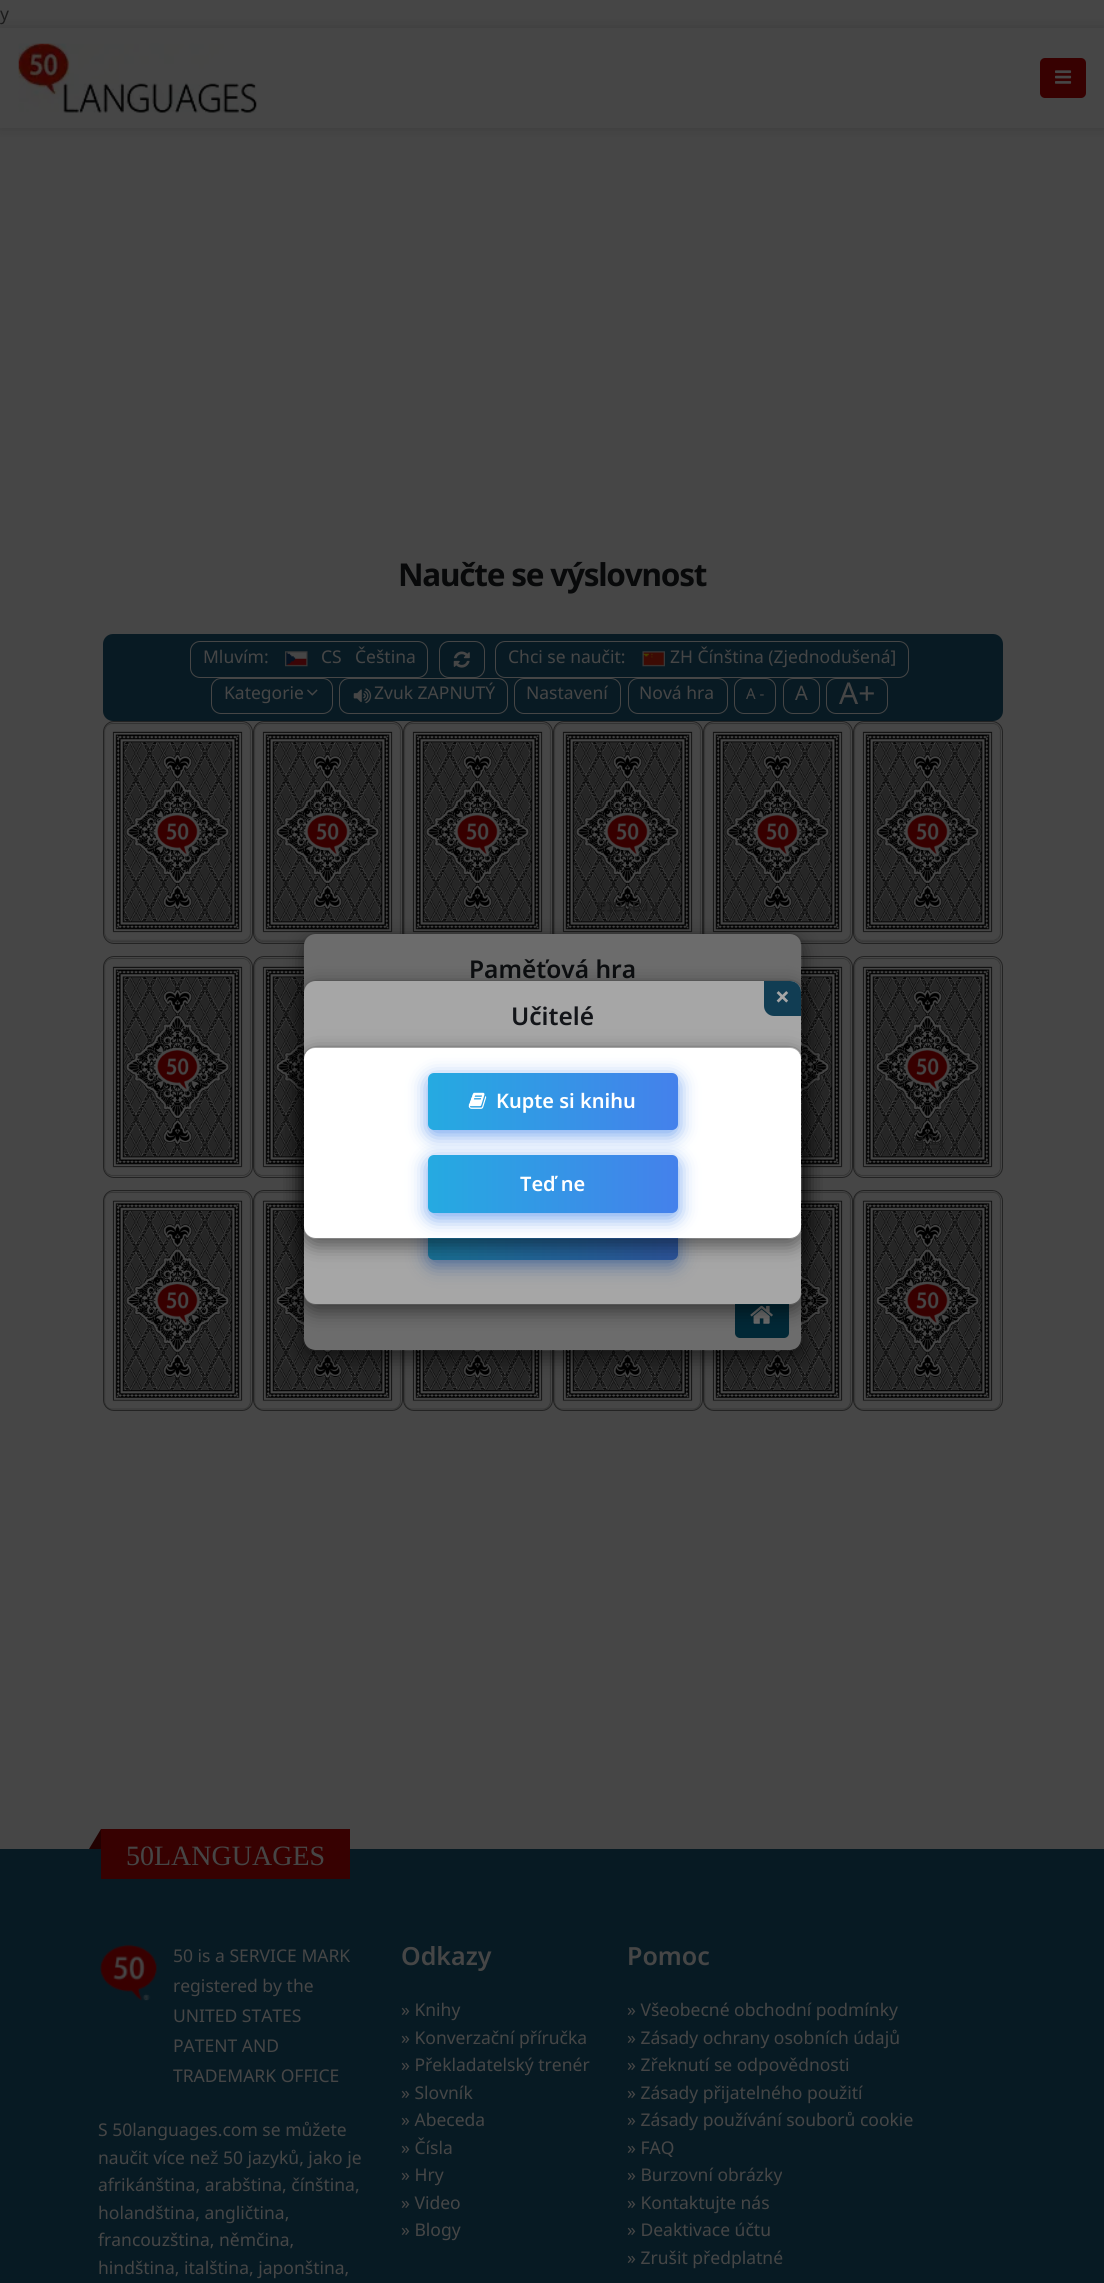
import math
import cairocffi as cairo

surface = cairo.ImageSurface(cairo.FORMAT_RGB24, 1104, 2283)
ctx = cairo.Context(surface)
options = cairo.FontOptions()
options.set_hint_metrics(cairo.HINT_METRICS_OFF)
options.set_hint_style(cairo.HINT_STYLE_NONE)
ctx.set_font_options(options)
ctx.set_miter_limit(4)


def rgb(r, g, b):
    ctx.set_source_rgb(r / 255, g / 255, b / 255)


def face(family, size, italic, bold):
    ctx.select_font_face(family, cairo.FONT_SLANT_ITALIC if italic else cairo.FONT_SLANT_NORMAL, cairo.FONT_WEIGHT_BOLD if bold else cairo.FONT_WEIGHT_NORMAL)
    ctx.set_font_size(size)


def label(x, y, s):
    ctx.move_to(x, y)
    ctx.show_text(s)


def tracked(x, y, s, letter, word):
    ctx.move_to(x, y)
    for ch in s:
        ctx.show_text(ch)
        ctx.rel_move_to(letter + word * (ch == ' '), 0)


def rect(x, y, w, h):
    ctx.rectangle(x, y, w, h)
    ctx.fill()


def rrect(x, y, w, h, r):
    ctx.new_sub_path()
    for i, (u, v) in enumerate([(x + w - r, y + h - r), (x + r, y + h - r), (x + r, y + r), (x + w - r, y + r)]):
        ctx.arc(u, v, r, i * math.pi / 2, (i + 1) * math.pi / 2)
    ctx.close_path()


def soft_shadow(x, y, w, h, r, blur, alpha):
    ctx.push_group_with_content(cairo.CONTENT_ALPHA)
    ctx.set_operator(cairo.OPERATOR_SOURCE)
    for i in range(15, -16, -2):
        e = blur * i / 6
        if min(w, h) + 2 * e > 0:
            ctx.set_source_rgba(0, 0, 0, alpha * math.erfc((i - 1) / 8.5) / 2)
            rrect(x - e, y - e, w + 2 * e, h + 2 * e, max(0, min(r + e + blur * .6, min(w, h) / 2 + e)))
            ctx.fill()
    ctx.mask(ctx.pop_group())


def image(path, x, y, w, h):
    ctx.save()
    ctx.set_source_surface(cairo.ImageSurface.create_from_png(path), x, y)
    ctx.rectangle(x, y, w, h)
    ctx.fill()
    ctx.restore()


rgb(70, 70, 70)
ctx.paint()
face('Noto Sans', 17.5, 0, 0)
rgb(28, 28, 28)
label(0, 20, 'y')
rgb(0, 0, 0)
soft_shadow(0, 28, 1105, 100, 0, 6, 0.15)
rgb(70, 70, 70)
rect(0, 28, 1104, 100)
image('image0.png', 18, 43, 239, 70)
rgb(55, 1, 1)
rrect(1040, 58, 46, 40, 5)
ctx.fill()
image('image1.png', 1055, 70, 17, 14)
face('Noto Sans', 31.5, 0, 1)
rgb(8, 9, 10)
tracked(398, 586, 'Naučte se výslovnost', -1.25, 0)
rgb(8, 26, 35)
rrect(103, 634, 900, 87, 10)
ctx.fill()
rrect(190.5, 641.5, 237, 36, 9.5)
rgb(70, 70, 70)
ctx.set_line_width(1)
ctx.stroke()
face('Noto Sans', 17.5, 0, 0)
label(203, 663, 'Mluvím:')
image('image2.png', 285, 651, 23, 16)
label(321, 663, 'CS')
label(355, 663, 'Čeština')
rrect(439.5, 641.5, 45, 36, 9.5)
ctx.stroke()
image('image3.png', 453, 651, 17, 17)
rrect(495.5, 641.5, 413, 36, 9.5)
ctx.stroke()
label(508, 663, 'Chci se naučit:')
image('image4.png', 642, 651, 23, 16)
label(670, 663, 'ZH Čínština (Zjednodušená]')
rrect(211.5, 678.5, 121, 35, 9.5)
ctx.stroke()
label(224, 699, 'Kategorie')
image('image5.png', 307, 689, 11, 7)
rrect(339.5, 678.5, 168, 35, 9.5)
ctx.stroke()
image('image6.png', 353, 688, 19, 16)
label(374, 699, 'Zvuk ZAPNUTÝ')
rrect(514.5, 678.5, 106, 35, 9.5)
ctx.stroke()
label(526, 699, 'Nastavení')
rrect(628.5, 678.5, 99, 35, 9.5)
ctx.stroke()
label(639, 699, 'Nová hra')
rrect(734.5, 678.5, 41, 35, 9.5)
ctx.stroke()
face('Noto Sans', 15, 0, 0)
label(746, 699, 'A -')
rrect(783.5, 678.5, 36, 35, 9.5)
ctx.stroke()
face('Noto Sans', 20, 0, 0)
label(795, 700, 'A')
rrect(826.5, 678.5, 61, 35, 9.5)
ctx.stroke()
face('Noto Sans', 30, 0, 0)
label(839, 704, 'A+')
rrect(103.5, 721.5, 149, 222, 10.5)
rgb(35, 35, 35)
ctx.stroke()
image('image7.png', 104, 723, 147, 219)
image('image8.png', 104, 723, 147, 220)
rrect(253.5, 721.5, 149, 222, 10.5)
ctx.stroke()
image('image9.png', 254, 723, 147, 219)
image('image10.png', 254, 723, 147, 220)
rrect(403.5, 721.5, 149, 222, 10.5)
ctx.stroke()
image('image11.png', 404, 723, 147, 211)
image('image12.png', 404, 723, 147, 211)
rrect(553.5, 721.5, 149, 222, 10.5)
ctx.stroke()
image('image11.png', 554, 723, 147, 211)
image('image13.png', 554, 723, 147, 211)
face('Noto Sans', 17.5, 0, 0)
rgb(28, 28, 28)
ctx.save()
ctx.translate(658, 902)
ctx.rotate(180 * math.pi / 180)
label(0, 0, 'kravata')
ctx.restore()
rrect(703.5, 721.5, 149, 222, 10.5)
rgb(35, 35, 35)
ctx.stroke()
image('image9.png', 704, 723, 147, 219)
image('image14.png', 704, 723, 147, 220)
rrect(853.5, 721.5, 149, 222, 10.5)
ctx.stroke()
image('image9.png', 854, 723, 147, 219)
image('image10.png', 854, 723, 147, 220)
rrect(103.5, 956.5, 149, 221, 10.5)
ctx.stroke()
image('image15.png', 104, 958, 147, 218)
image('image16.png', 104, 958, 147, 218)
rrect(253.5, 956.5, 149, 221, 10.5)
ctx.stroke()
image('image17.png', 254, 958, 50, 218)
image('image18.png', 254, 958, 50, 218)
rrect(703.5, 956.5, 149, 221, 10.5)
ctx.stroke()
image('image19.png', 801, 958, 50, 218)
image('image20.png', 801, 958, 50, 218)
rrect(853.5, 956.5, 149, 221, 10.5)
ctx.stroke()
image('image21.png', 854, 958, 147, 218)
image('image22.png', 854, 958, 147, 218)
face('WenQuanYi Zen Hei Medium', 17.5, 0, 0)
rgb(28, 28, 28)
ctx.save()
ctx.translate(945, 1136)
ctx.rotate(180 * math.pi / 180)
label(0, 0, '玩具')
ctx.restore()
rrect(103.5, 1190.5, 149, 220, 10.5)
rgb(35, 35, 35)
ctx.stroke()
image('image23.png', 104, 1191, 147, 219)
image('image24.png', 104, 1191, 147, 219)
rrect(253.5, 1190.5, 149, 220, 10.5)
ctx.stroke()
image('image25.png', 254, 1191, 147, 219)
image('image26.png', 254, 1191, 147, 219)
rrect(403.5, 1190.5, 149, 220, 10.5)
ctx.stroke()
image('image27.png', 404, 1350, 147, 60)
image('image28.png', 404, 1350, 147, 60)
rrect(553.5, 1190.5, 149, 220, 10.5)
ctx.stroke()
image('image27.png', 554, 1350, 147, 60)
image('image29.png', 554, 1350, 147, 60)
rrect(703.5, 1190.5, 149, 220, 10.5)
ctx.stroke()
image('image25.png', 704, 1191, 147, 219)
image('image30.png', 704, 1191, 147, 219)
rrect(853.5, 1190.5, 149, 220, 10.5)
ctx.stroke()
image('image25.png', 854, 1191, 147, 219)
image('image31.png', 854, 1191, 147, 219)
ctx.save()
ctx.set_fill_rule(cairo.FILL_RULE_EVEN_ODD)
ctx.new_path()
ctx.move_to(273, 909)
ctx.line_to(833, 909)
ctx.line_to(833, 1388)
ctx.line_to(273, 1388)
ctx.close_path()
ctx.move_to(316, 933)
ctx.line_to(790, 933)
ctx.curve_to(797, 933, 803, 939, 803, 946)
ctx.line_to(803, 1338)
ctx.curve_to(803, 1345, 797, 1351, 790, 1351)
ctx.line_to(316, 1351)
ctx.curve_to(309, 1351, 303, 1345, 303, 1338)
ctx.line_to(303, 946)
ctx.curve_to(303, 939, 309, 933, 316, 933)
ctx.close_path()
ctx.clip()
rgb(0, 0, 0)
soft_shadow(303, 939, 500, 419, 13, 9.5, 0.5)
ctx.restore()
rgb(108, 108, 108)
rrect(304, 934, 497, 416, 11)
ctx.fill()
rrect(303.5, 933.5, 499, 417, 12.5)
ctx.set_source_rgba(0, 0, 0, 0.2)
ctx.stroke()
face('Noto Sans SemiBold', 24.5, 0, 0)
rgb(12, 14, 16)
label(469, 978, 'Paměťová hra')
rgb(1, 40, 54)
rrect(735, 1295, 54, 43, 5)
ctx.fill()
image('image32.png', 750, 1305, 23, 19)
rgb(7, 26, 35)
rect(0, 1849, 1104, 434)
rgb(55, 1, 1)
rect(101, 1829, 249, 50)
rgb(34, 1, 1)
ctx.new_path()
ctx.move_to(101, 1829)
ctx.line_to(101, 1849)
ctx.line_to(89, 1849)
ctx.close_path()
ctx.fill()
face('Liberation Serif', 28, 0, 0)
rgb(70, 70, 70)
label(126, 1865, '50LANGUAGES')
image('image33.png', 100, 1944, 58, 57)
face('Noto Sans', 17.5, 0, 0)
label(173, 1962, '50 is a SERVICE MARK')
label(173, 1992, 'registered by the')
label(173, 2022, 'UNITED STATES')
label(173, 2052, 'PATENT AND')
label(173, 2082, 'TRADEMARK OFFICE')
label(98, 2136, 'S 50languages.com se můžete')
label(98, 2164, 'naučit více než 50 jazyků, jako je')
label(98, 2191, 'afrikánština, arabština, čínština,')
label(98, 2219, 'holandština, angličtina,')
label(98, 2246, 'francouzština, němčina,')
label(98, 2274, 'hindština, italština, japonština,')
face('Noto Sans SemiBold', 25, 0, 0)
label(401, 1965, 'Odkazy')
face('Noto Sans', 17.5, 0, 0)
label(401, 2016, '» Knihy')
label(401, 2044, '» Konverzační příručka')
label(401, 2071, '» Překladatelský trenér')
label(401, 2099, '» Slovník')
label(401, 2126, '» Abeceda')
label(401, 2154, '» Čísla')
label(401, 2181, '» Hry')
label(401, 2209, '» Video')
label(401, 2236, '» Blogy')
face('Noto Sans SemiBold', 25, 0, 0)
label(627, 1965, 'Pomoc')
face('Noto Sans', 17.5, 0, 0)
label(627, 2016, '» Všeobecné obchodní podmínky')
label(627, 2044, '» Zásady ochrany osobních údajů')
label(627, 2071, '» Zřeknutí se odpovědnosti')
label(627, 2099, '» Zásady přijatelného použití')
label(627, 2126, '» Zásady používání souborů cookie')
label(627, 2154, '» FAQ')
label(627, 2181, '» Burzovní obrázky')
label(627, 2209, '» Kontaktujte nás')
label(627, 2236, '» Deaktivace účtu')
label(627, 2264, '» Zrušit předplatné')
ctx.save()
ctx.set_fill_rule(cairo.FILL_RULE_EVEN_ODD)
ctx.new_path()
ctx.move_to(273, 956)
ctx.line_to(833, 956)
ctx.line_to(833, 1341)
ctx.line_to(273, 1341)
ctx.close_path()
ctx.move_to(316, 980)
ctx.line_to(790, 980)
ctx.curve_to(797, 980, 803, 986, 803, 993)
ctx.line_to(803, 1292)
ctx.curve_to(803, 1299, 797, 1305, 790, 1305)
ctx.line_to(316, 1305)
ctx.curve_to(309, 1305, 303, 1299, 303, 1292)
ctx.line_to(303, 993)
ctx.curve_to(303, 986, 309, 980, 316, 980)
ctx.close_path()
ctx.clip()
rgb(0, 0, 0)
soft_shadow(303, 986, 500, 325, 13, 9.5, 0.5)
ctx.restore()
rgb(166, 166, 166)
rrect(304, 981, 497, 323, 11)
ctx.fill()
rrect(303.5, 980.5, 499, 324, 12.5)
ctx.set_source_rgba(0, 0, 0, 0.2)
ctx.stroke()
rgb(149, 149, 149)
rect(304, 1053, 497, 1)
ctx.save()
rrect(304, 981, 497, 323, 11)
ctx.clip()
rgb(17, 61, 83)
ctx.new_path()
ctx.move_to(764, 979)
ctx.line_to(791, 979)
ctx.curve_to(796.5, 979, 801, 983.5, 801, 989)
ctx.line_to(801, 1016)
ctx.line_to(774, 1016)
ctx.curve_to(768.5, 1016, 764, 1011.5, 764, 1006)
ctx.close_path()
ctx.fill()
ctx.restore()
face('Noto Sans', 26, 0, 1)
rgb(166, 166, 166)
label(775, 1006, '×')
face('Noto Sans SemiBold', 24.5, 0, 0)
rgb(19, 21, 25)
label(511, 1025, 'Učitelé')
rgb(42, 86, 152)
soft_shadow(428, 1196, 250, 69, 6, 9.5, 0.75)
gradient = cairo.LinearGradient(428, 1225, 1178, 1225)
gradient.add_color_stop_rgba(0, 0.094, 0.435, 0.573, 1)
gradient.add_color_stop_rgba(0.33, 0.173, 0.329, 0.6, 1)
gradient.add_color_stop_rgba(0.67, 0.012, 0.486, 0.647, 1)
gradient.add_color_stop_rgba(1, 0.161, 0.341, 0.604, 1)
ctx.set_source(gradient)
rrect(428, 1191, 250, 69, 6)
ctx.fill()
ctx.save()
ctx.set_fill_rule(cairo.FILL_RULE_EVEN_ODD)
ctx.new_path()
ctx.move_to(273, 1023)
ctx.line_to(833, 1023)
ctx.line_to(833, 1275)
ctx.line_to(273, 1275)
ctx.close_path()
ctx.move_to(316, 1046)
ctx.line_to(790, 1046)
ctx.curve_to(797, 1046, 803, 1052, 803, 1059)
ctx.line_to(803, 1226)
ctx.curve_to(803, 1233, 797, 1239, 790, 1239)
ctx.line_to(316, 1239)
ctx.curve_to(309, 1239, 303, 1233, 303, 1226)
ctx.line_to(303, 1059)
ctx.curve_to(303, 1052, 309, 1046, 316, 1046)
ctx.close_path()
ctx.clip()
rgb(0, 0, 0)
soft_shadow(303, 1053, 500, 192, 13, 9.5, 0.5)
ctx.restore()
rgb(255, 255, 255)
rrect(304, 1048, 497, 190, 11)
ctx.fill()
rrect(303.5, 1046.5, 499, 192, 12.5)
ctx.set_source_rgba(0, 0, 0, 0.2)
ctx.stroke()
rgb(65, 132, 234)
soft_shadow(428, 1078, 250, 57, 6, 9.5, 0.75)
gradient = cairo.LinearGradient(428, 1101, 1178, 1101)
gradient.add_color_stop_rgba(0, 0.145, 0.667, 0.882, 1)
gradient.add_color_stop_rgba(0.33, 0.267, 0.506, 0.922, 1)
gradient.add_color_stop_rgba(0.67, 0.016, 0.745, 0.996, 1)
gradient.add_color_stop_rgba(1, 0.247, 0.525, 0.929, 1)
ctx.set_source(gradient)
rrect(428, 1073, 250, 57, 6)
ctx.fill()
image('image34.png', 468, 1092, 19, 17)
face('Noto Sans SemiBold', 20, 0, 0)
rgb(255, 255, 255)
label(496, 1108, 'Kupte si knihu')
rgb(65, 132, 234)
soft_shadow(428, 1160, 250, 58, 6, 9.5, 0.75)
gradient = cairo.LinearGradient(428, 1184, 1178, 1184)
gradient.add_color_stop_rgba(0, 0.145, 0.667, 0.882, 1)
gradient.add_color_stop_rgba(0.33, 0.267, 0.506, 0.922, 1)
gradient.add_color_stop_rgba(0.67, 0.016, 0.745, 0.996, 1)
gradient.add_color_stop_rgba(1, 0.247, 0.525, 0.929, 1)
ctx.set_source(gradient)
rrect(428, 1155, 250, 58, 6)
ctx.fill()
rgb(255, 255, 255)
label(520, 1191, 'Teď ne')
surface.write_to_png('render.png')
